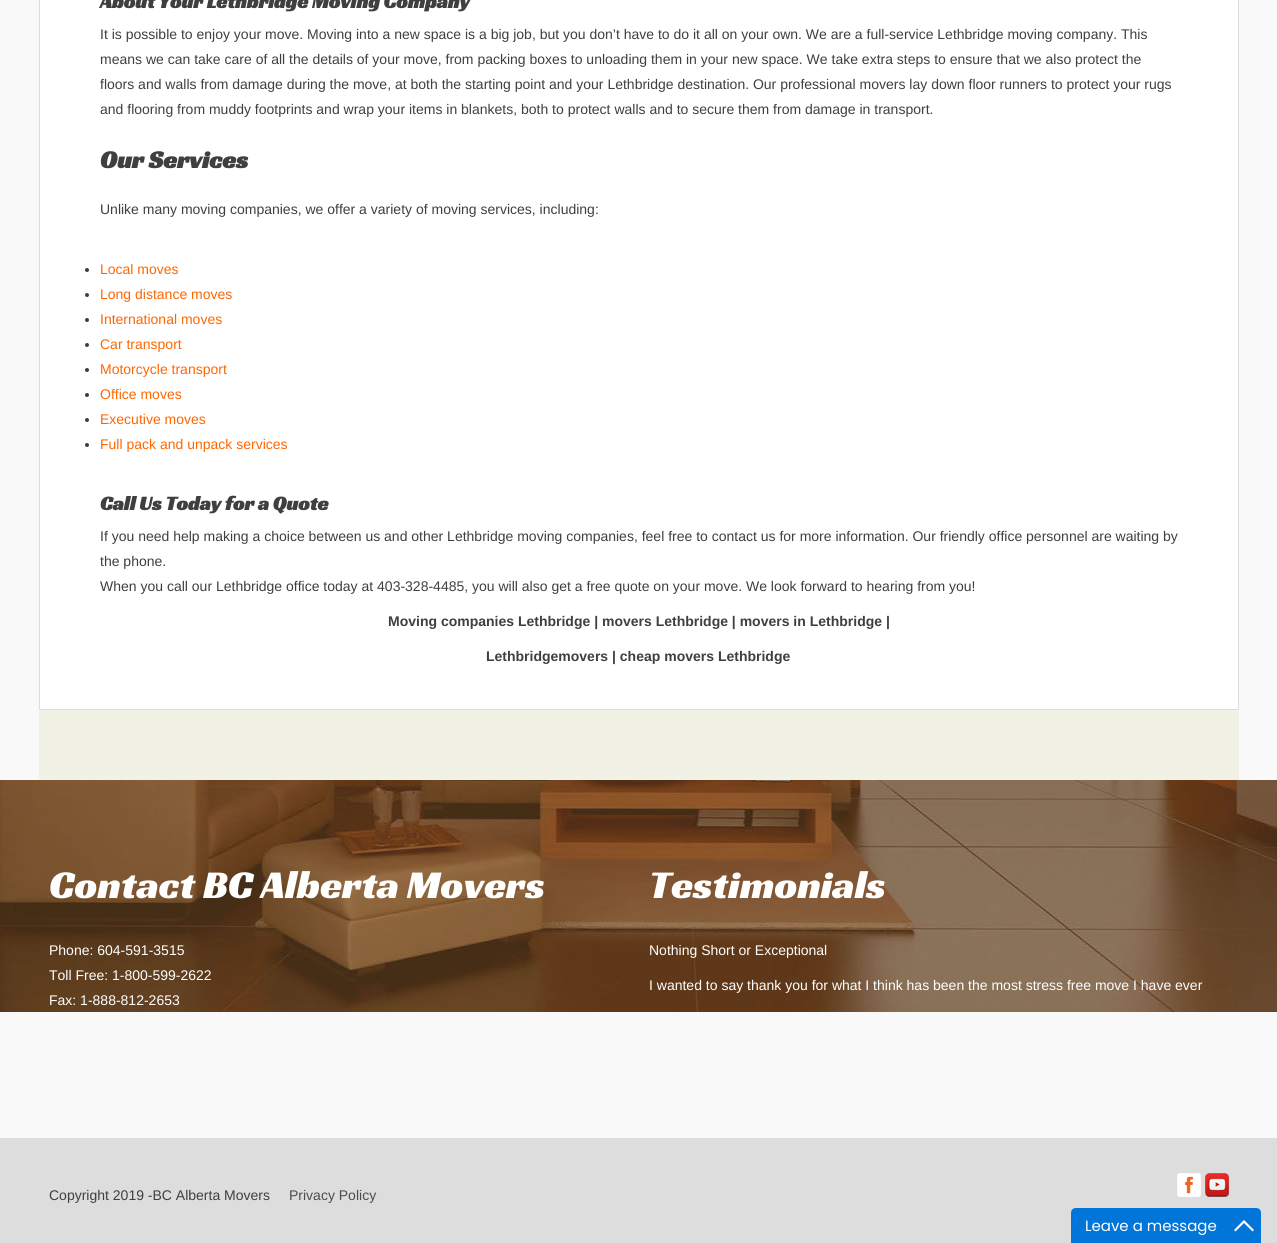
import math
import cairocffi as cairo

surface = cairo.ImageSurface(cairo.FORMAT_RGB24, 1277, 1243)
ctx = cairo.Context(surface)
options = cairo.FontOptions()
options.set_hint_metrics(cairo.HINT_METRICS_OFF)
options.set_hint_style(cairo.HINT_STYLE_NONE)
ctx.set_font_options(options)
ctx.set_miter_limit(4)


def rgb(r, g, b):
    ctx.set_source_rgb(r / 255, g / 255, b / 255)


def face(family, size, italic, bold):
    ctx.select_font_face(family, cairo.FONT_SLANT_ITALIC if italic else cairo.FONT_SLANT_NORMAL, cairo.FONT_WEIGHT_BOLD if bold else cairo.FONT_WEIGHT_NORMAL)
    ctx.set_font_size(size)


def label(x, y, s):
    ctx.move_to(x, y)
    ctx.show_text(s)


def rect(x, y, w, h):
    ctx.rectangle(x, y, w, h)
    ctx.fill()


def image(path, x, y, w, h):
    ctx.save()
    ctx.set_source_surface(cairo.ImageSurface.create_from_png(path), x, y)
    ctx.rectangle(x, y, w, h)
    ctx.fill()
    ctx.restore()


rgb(249, 249, 249)
ctx.paint()
rgb(241, 241, 230)
rect(39, 710, 1200, 70)
rgb(255, 255, 255)
ctx.rectangle(39.5, -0.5, 1199, 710)
ctx.fill_preserve()
rgb(221, 221, 221)
ctx.set_line_width(1)
ctx.stroke()
face('Racing Sans One', 20, 0, 1)
rgb(63, 63, 63)
label(100, 8, 'About Your Lethbridge Moving Company')
face('Liberation Sans', 14, 0, 0)
label(100, 39, 'It is possible to enjoy your move. Moving into a new space is a big job, but you don’t have to do it all on your own. We are a full-service Lethbridge moving company. This')
label(100, 64, 'means we can take care of all the details of your move, from packing boxes to unloading them in your new space. We take extra steps to ensure that we also protect the')
label(100, 89, 'floors and walls from damage during the move, at both the starting point and your Lethbridge destination. Our professional movers lay down floor runners to protect your rugs')
label(100, 114, 'and flooring from muddy footprints and wrap your items in blankets, both to protect walls and to secure them from damage in transport.')
face('Racing Sans One', 25, 0, 1)
label(100, 168, 'Our Services')
face('Liberation Sans', 14, 0, 0)
label(100, 214, 'Unlike many moving companies, we offer a variety of moving services, including:')
ctx.new_path()
ctx.arc(87, 270, 2, 0, 2 * math.pi)
ctx.fill()
rgb(255, 102, 0)
label(100, 274, 'Local moves')
rgb(63, 63, 63)
ctx.new_path()
ctx.arc(87, 295, 2, 0, 2 * math.pi)
ctx.fill()
rgb(255, 102, 0)
label(100, 299, 'Long distance moves')
rgb(63, 63, 63)
ctx.new_path()
ctx.arc(87, 320, 2, 0, 2 * math.pi)
ctx.fill()
rgb(255, 102, 0)
label(100, 324, 'International moves')
rgb(63, 63, 63)
ctx.new_path()
ctx.arc(87, 345, 2, 0, 2 * math.pi)
ctx.fill()
rgb(255, 102, 0)
label(100, 349, 'Car transport')
rgb(63, 63, 63)
ctx.new_path()
ctx.arc(87, 370, 2, 0, 2 * math.pi)
ctx.fill()
rgb(255, 102, 0)
label(100, 374, 'Motorcycle transport')
rgb(63, 63, 63)
ctx.new_path()
ctx.arc(87, 395, 2, 0, 2 * math.pi)
ctx.fill()
rgb(255, 102, 0)
label(100, 399, 'Office moves')
rgb(63, 63, 63)
ctx.new_path()
ctx.arc(87, 420, 2, 0, 2 * math.pi)
ctx.fill()
rgb(255, 102, 0)
label(100, 424, 'Executive moves')
rgb(63, 63, 63)
ctx.new_path()
ctx.arc(87, 445, 2, 0, 2 * math.pi)
ctx.fill()
rgb(255, 102, 0)
label(100, 449, 'Full pack and unpack services')
face('Racing Sans One', 20, 0, 1)
rgb(63, 63, 63)
label(100, 510, 'Call Us Today for a Quote')
face('Liberation Sans', 14, 0, 0)
label(100, 541, 'If you need help making a choice between us and other Lethbridge moving companies, feel free to contact us for more information. Our friendly office personnel are waiting by')
label(100, 566, 'the phone.')
label(100, 591, 'When you call our Lethbridge office today at 403-328-4485, you will also get a free quote on your move. We look forward to hearing from you!')
face('Liberation Sans', 14, 0, 1)
label(388, 626, 'Moving companies Lethbridge | movers Lethbridge | movers in Lethbridge |')
label(486, 661, 'Lethbridgemovers | cheap movers Lethbridge')
image('image0.png', 0, 780, 1277, 232)
face('Racing Sans One', 40, 0, 0)
rgb(255, 255, 255)
label(49, 898, 'Contact BC Alberta Movers')
face('Liberation Sans', 14, 0, 0)
label(49, 955, 'Phone: 604-591-3515')
label(49, 980, 'Toll Free: 1-800-599-2622')
label(49, 1005, 'Fax: 1-888-812-2653')
face('Racing Sans One', 40, 0, 0)
label(649, 898, 'Testimonials')
face('Liberation Sans', 14, 0, 0)
label(649, 955, 'Nothing Short or Exceptional')
label(649, 990, 'I wanted to say thank you for what I think has been the most stress free move I have ever')
rgb(221, 221, 221)
rect(0, 1138, 1277, 105)
rgb(63, 63, 63)
label(49, 1200, 'Copyright 2019 -BC Alberta Movers')
rgb(76, 76, 76)
label(289, 1200, 'Privacy Policy')
rgb(242, 99, 36)
rect(1177, 1177, 24, 16)
image('image1.png', 1177, 1173, 24, 24)
rect(1205, 1177, 24, 16)
image('image2.png', 1205, 1173, 24, 24)
rgb(2, 117, 216)
ctx.new_path()
ctx.move_to(1076, 1208)
ctx.line_to(1256, 1208)
ctx.curve_to(1259, 1208, 1261, 1210, 1261, 1213)
ctx.line_to(1261, 1243)
ctx.line_to(1071, 1243)
ctx.line_to(1071, 1213)
ctx.curve_to(1071, 1210, 1073, 1208, 1076, 1208)
ctx.close_path()
ctx.fill()
face('Poppins', 15, 0, 0)
rgb(255, 255, 255)
label(1085, 1231, 'Leave a message')
ctx.new_path()
ctx.move_to(1244, 1220)
ctx.line_to(1254, 1230)
ctx.line_to(1252.5, 1231.5)
ctx.line_to(1244, 1223)
ctx.line_to(1235.5, 1231.5)
ctx.line_to(1234, 1230)
ctx.close_path()
ctx.fill()
surface.write_to_png('render.png')
